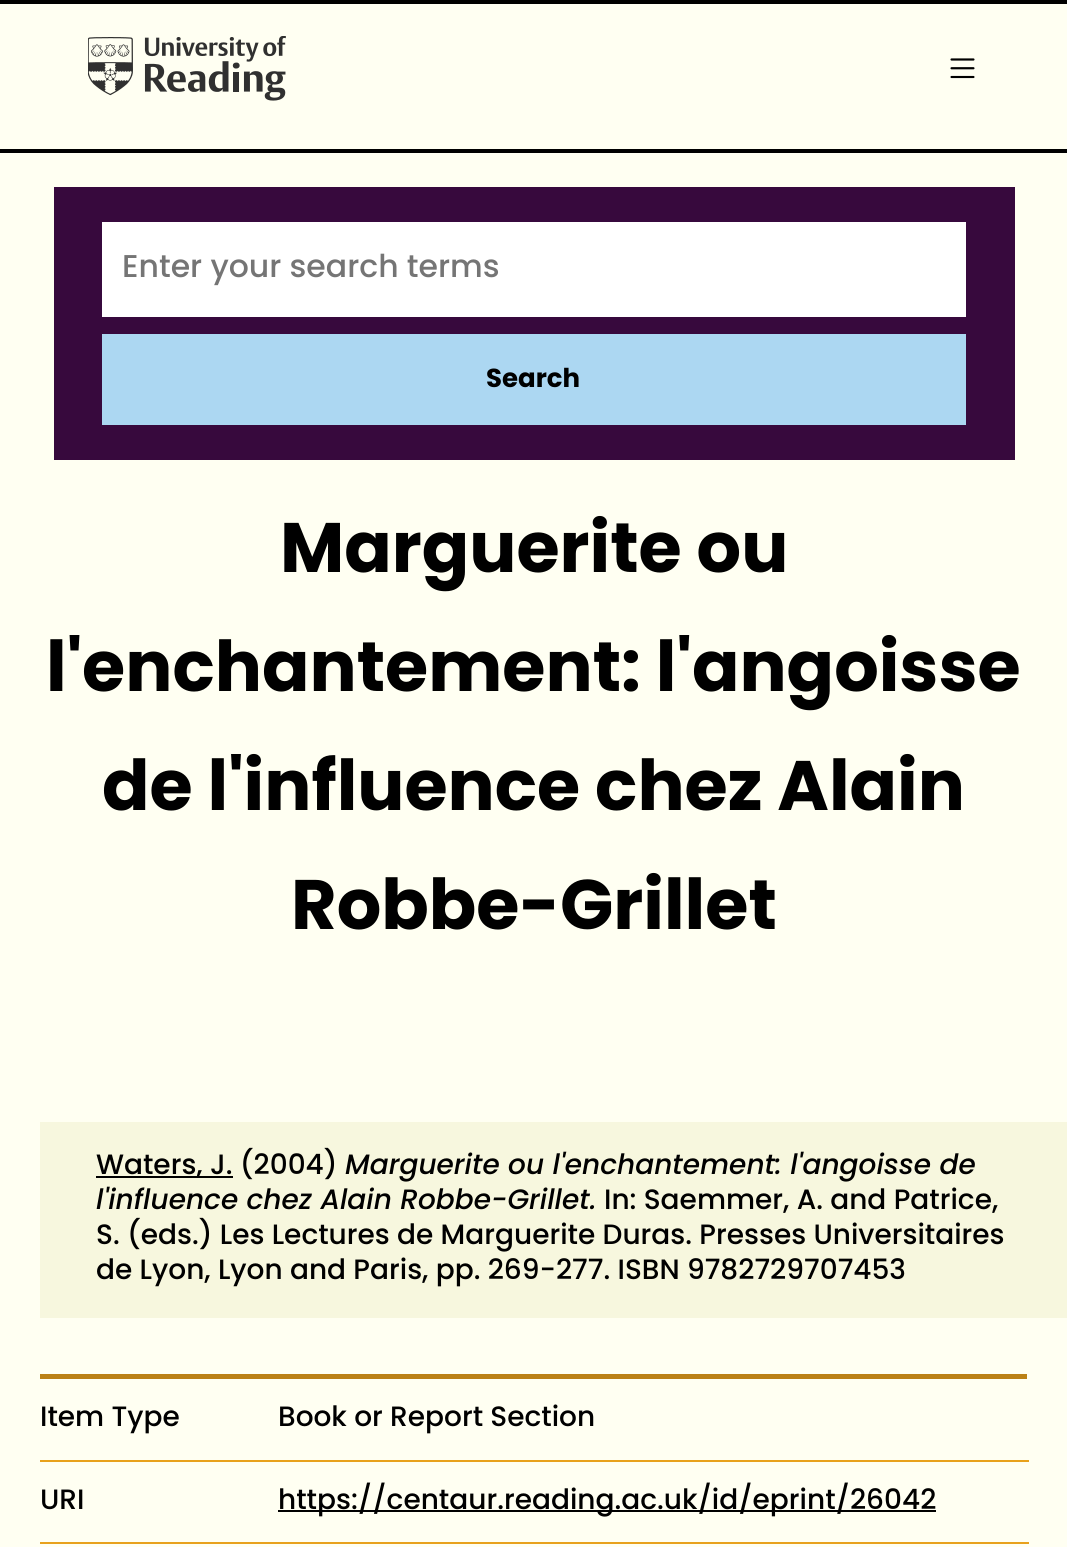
import math
import cairocffi as cairo

surface = cairo.ImageSurface(cairo.FORMAT_RGB24, 1067, 1547)
ctx = cairo.Context(surface)
options = cairo.FontOptions()
options.set_hint_metrics(cairo.HINT_METRICS_OFF)
options.set_hint_style(cairo.HINT_STYLE_NONE)
ctx.set_font_options(options)
ctx.set_miter_limit(4)


def rgb(r, g, b):
    ctx.set_source_rgb(r / 255, g / 255, b / 255)


def face(family, size, italic, bold):
    ctx.select_font_face(family, cairo.FONT_SLANT_ITALIC if italic else cairo.FONT_SLANT_NORMAL, cairo.FONT_WEIGHT_BOLD if bold else cairo.FONT_WEIGHT_NORMAL)
    ctx.set_font_size(size)


def label(x, y, s):
    ctx.move_to(x, y)
    ctx.show_text(s)


def rect(x, y, w, h):
    ctx.rectangle(x, y, w, h)
    ctx.fill()


def image(path, x, y, w, h):
    ctx.save()
    ctx.set_source_surface(cairo.ImageSurface.create_from_png(path), x, y)
    ctx.rectangle(x, y, w, h)
    ctx.fill()
    ctx.restore()


rgb(255, 255, 242)
ctx.paint()
rgb(0, 0, 0)
rect(0, 0, 1067, 4)
rect(0, 149, 1067, 4)
image('image0.png', 88, 36, 198, 65)
image('image1.png', 950, 58, 25, 21)
rgb(55, 9, 61)
rect(54, 187, 961, 273)
rgb(255, 255, 255)
rect(102, 222, 864, 95)
face('Poppins Medium', 31.5, 0, 0)
rgb(117, 117, 117)
label(122, 277, 'Enter your search terms')
rgb(172, 215, 242)
rect(102, 334, 864, 91)
face('Poppins', 26, 0, 1)
rgb(0, 0, 0)
label(486, 387, 'Search')
face('Poppins', 70, 0, 1)
label(280, 572, 'Marguerite ou')
label(46, 691, 'l\'enchantement: l\'angoisse')
label(102, 810, 'de l\'influence chez Alain')
label(291, 929, 'Robbe-Grillet')
rgb(247, 247, 222)
rect(40, 1122, 1027, 196)
rgb(0, 0, 0)
rect(96, 1176, 137, 2)
face('Poppins Medium', 28, 0, 0)
label(96, 1174, 'Waters, J. (2004)')
face('Poppins Medium', 28, 1, 0)
label(345, 1174, 'Marguerite ou l\'enchantement: l\'angoisse de')
label(96, 1209, 'l\'influence chez Alain Robbe-Grillet.')
face('Poppins Medium', 28, 0, 0)
label(604, 1209, 'In: Saemmer, A. and Patrice,')
label(96, 1244, 'S. (eds.) Les Lectures de Marguerite Duras. Presses Universitaires')
label(96, 1279, 'de Lyon, Lyon and Paris, pp. 269-277. ISBN 9782729707453')
rgb(187, 129, 22)
rect(40, 1374, 987, 5)
rgb(232, 161, 28)
rect(40, 1460, 989, 2)
rgb(0, 0, 0)
label(40, 1426, 'Item Type')
label(278, 1426, 'Book or Report Section')
rgb(232, 161, 28)
rect(40, 1542, 989, 2)
rgb(0, 0, 0)
label(40, 1509, 'URI')
rect(278, 1510, 658, 2)
label(278, 1509, 'https://centaur.reading.ac.uk/id/eprint/26042')
surface.write_to_png('render.png')
